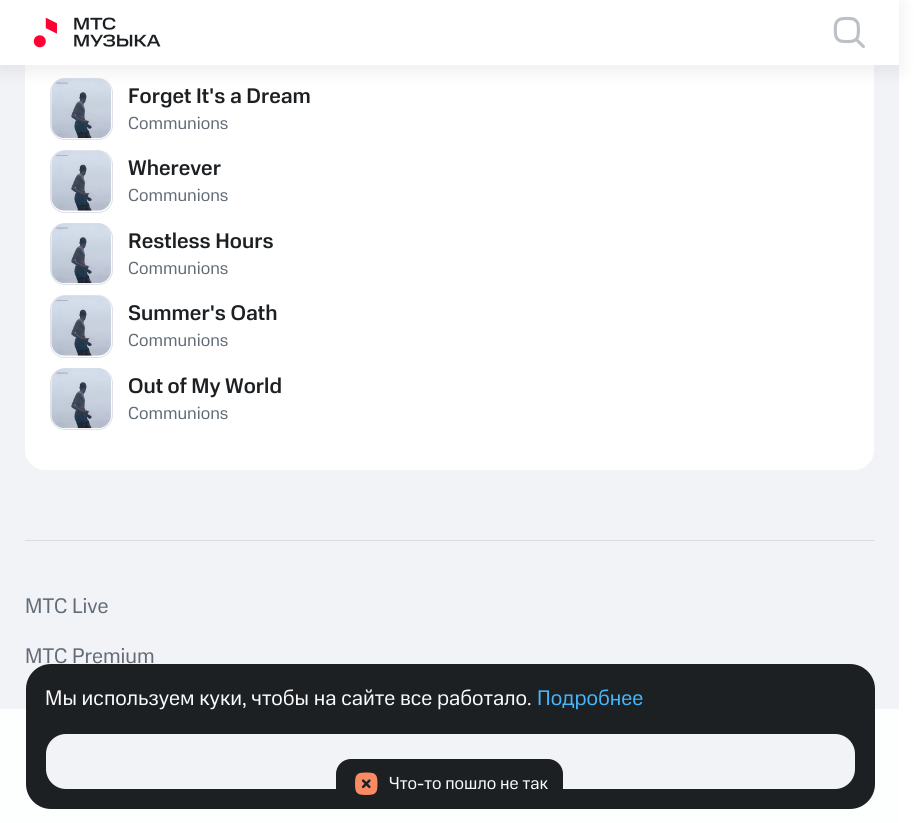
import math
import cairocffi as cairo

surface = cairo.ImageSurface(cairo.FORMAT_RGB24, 917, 823)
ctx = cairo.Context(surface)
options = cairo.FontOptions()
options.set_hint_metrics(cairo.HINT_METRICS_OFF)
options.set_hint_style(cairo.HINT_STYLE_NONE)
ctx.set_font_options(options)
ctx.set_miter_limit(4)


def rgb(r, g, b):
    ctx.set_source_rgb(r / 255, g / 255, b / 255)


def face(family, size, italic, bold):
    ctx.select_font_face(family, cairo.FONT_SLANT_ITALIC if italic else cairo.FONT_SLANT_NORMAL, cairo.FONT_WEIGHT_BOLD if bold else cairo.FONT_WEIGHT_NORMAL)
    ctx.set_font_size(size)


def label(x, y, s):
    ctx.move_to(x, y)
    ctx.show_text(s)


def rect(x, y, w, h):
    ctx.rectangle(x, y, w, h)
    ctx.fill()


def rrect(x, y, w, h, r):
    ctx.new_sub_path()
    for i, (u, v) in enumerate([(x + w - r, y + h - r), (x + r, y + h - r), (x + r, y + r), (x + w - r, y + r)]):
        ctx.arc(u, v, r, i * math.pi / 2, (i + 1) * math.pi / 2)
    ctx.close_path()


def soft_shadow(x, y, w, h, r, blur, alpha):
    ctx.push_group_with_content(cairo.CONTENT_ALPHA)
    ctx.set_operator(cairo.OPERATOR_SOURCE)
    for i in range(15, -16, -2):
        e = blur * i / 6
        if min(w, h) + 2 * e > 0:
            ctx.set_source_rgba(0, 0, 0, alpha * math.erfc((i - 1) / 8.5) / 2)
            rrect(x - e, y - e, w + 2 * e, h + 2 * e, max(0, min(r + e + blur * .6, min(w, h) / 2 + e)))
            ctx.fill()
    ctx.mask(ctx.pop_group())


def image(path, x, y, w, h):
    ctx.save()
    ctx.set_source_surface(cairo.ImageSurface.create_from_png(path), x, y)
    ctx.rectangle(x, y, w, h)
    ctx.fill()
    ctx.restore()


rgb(255, 255, 255)
ctx.paint()
rgb(242, 243, 247)
rect(0, 65, 899, 758)
rgb(255, 255, 255)
rrect(25, -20, 849, 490, 20)
ctx.fill()
rrect(50.5, 78.5, 62, 61, 14.5)
rgb(222, 225, 232)
ctx.set_line_width(1)
ctx.stroke()
image('image2.png', 51, 78, 61, 61)
ctx.save()
ctx.set_fill_rule(cairo.FILL_RULE_EVEN_ODD)
ctx.new_path()
ctx.move_to(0, 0)
ctx.line_to(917, 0)
ctx.line_to(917, 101)
ctx.line_to(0, 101)
ctx.close_path()
ctx.move_to(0, 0)
ctx.line_to(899, 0)
ctx.line_to(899, 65)
ctx.line_to(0, 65)
ctx.close_path()
ctx.clip()
rgb(0, 0, 0)
soft_shadow(0, 5, 899, 65, 0, 10, 0.08)
ctx.restore()
image('image0.png', 33, 17, 128, 31)
image('image1.png', 833, 16, 32, 33)
face('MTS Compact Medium', 21.25, 0, 0)
rgb(29, 32, 35)
label(128, 103, 'Forget It\'s a Dream')
face('MTS Compact', 17.5, 0, 0)
rgb(98, 108, 119)
label(128, 129, 'Communions')
rrect(50.5, 150.5, 62, 62, 14.5)
rgb(222, 225, 232)
ctx.stroke()
image('image3.png', 51, 151, 61, 60)
face('MTS Compact Medium', 21.25, 0, 0)
rgb(29, 32, 35)
label(128, 175, 'Wherever')
face('MTS Compact', 17.5, 0, 0)
rgb(98, 108, 119)
label(128, 201, 'Communions')
rrect(50.5, 223.5, 62, 61, 14.5)
rgb(222, 225, 232)
ctx.stroke()
image('image4.png', 51, 223, 61, 61)
face('MTS Compact Medium', 21.25, 0, 0)
rgb(29, 32, 35)
label(128, 248, 'Restless Hours')
face('MTS Compact', 17.5, 0, 0)
rgb(98, 108, 119)
label(128, 274, 'Communions')
rrect(50.5, 295.5, 62, 62, 14.5)
rgb(222, 225, 232)
ctx.stroke()
image('image5.png', 51, 296, 61, 60)
face('MTS Compact Medium', 21.25, 0, 0)
rgb(29, 32, 35)
label(128, 320, 'Summer\'s Oath')
face('MTS Compact', 17.5, 0, 0)
rgb(98, 108, 119)
label(128, 346, 'Communions')
rrect(50.5, 368.5, 62, 61, 14.5)
rgb(222, 225, 232)
ctx.stroke()
image('image2.png', 51, 368, 61, 61)
face('MTS Compact Medium', 21.25, 0, 0)
rgb(29, 32, 35)
label(128, 393, 'Out of My World')
face('MTS Compact', 17.5, 0, 0)
rgb(98, 108, 119)
label(128, 419, 'Communions')
rgb(215, 219, 228)
rect(25, 540, 849, 1)
face('MTS Compact', 21.25, 0, 0)
rgb(98, 108, 119)
label(25, 613, 'MTС Live')
label(25, 663, 'MTС Premium')
ctx.set_source_rgba(1, 1, 1, 0.88)
rect(0, 709, 899, 114)
rgb(29, 32, 35)
rrect(26, 664, 849, 145, 25)
ctx.fill()
rgb(250, 250, 250)
label(45, 705, 'Мы используем куки, чтобы на сайте все работало.')
rgb(69, 182, 252)
label(537, 705, 'Подробнее')
rgb(242, 243, 247)
rrect(46, 734, 809, 55, 20)
ctx.fill()
rgb(29, 32, 35)
rrect(336, 759, 227, 50, 15)
ctx.fill()
image('image6.png', 355, 772, 23, 23)
face('MTS Compact', 17.5, 0, 0)
rgb(250, 250, 250)
label(389, 789, 'Что-то пошло не так')
surface.write_to_png('render.png')
